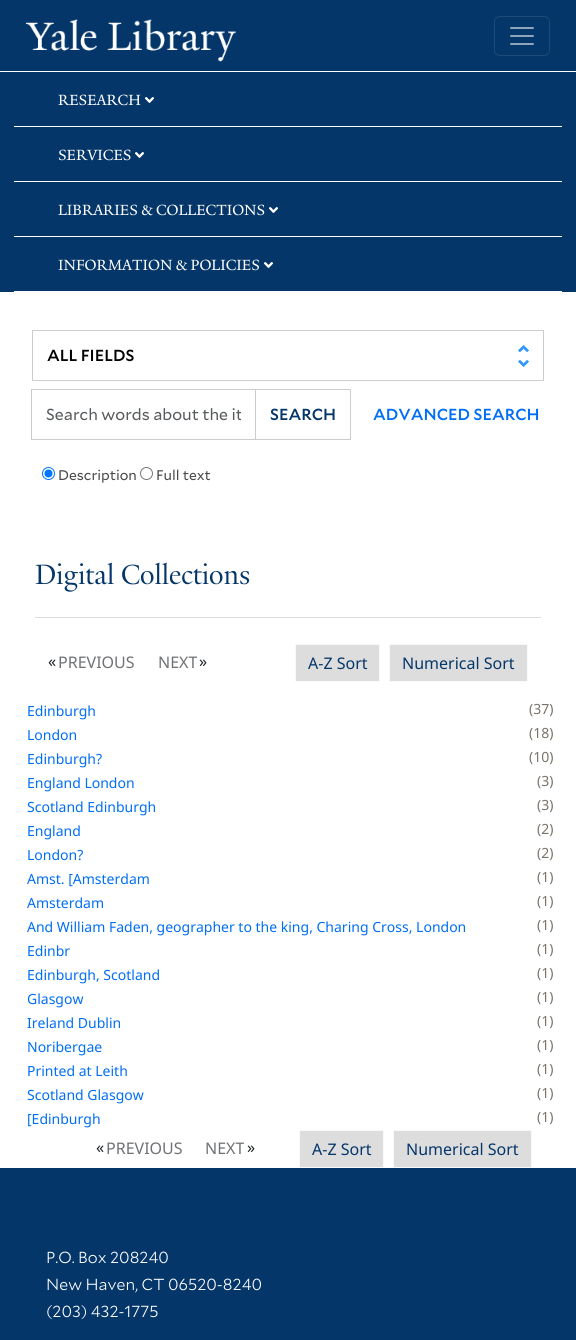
import math
import cairocffi as cairo

surface = cairo.ImageSurface(cairo.FORMAT_RGB24, 576, 1340)
ctx = cairo.Context(surface)
options = cairo.FontOptions()
options.set_hint_metrics(cairo.HINT_METRICS_OFF)
options.set_hint_style(cairo.HINT_STYLE_NONE)
ctx.set_font_options(options)
ctx.set_miter_limit(4)


def rgb(r, g, b):
    ctx.set_source_rgb(r / 255, g / 255, b / 255)


def face(family, size, italic, bold):
    ctx.select_font_face(family, cairo.FONT_SLANT_ITALIC if italic else cairo.FONT_SLANT_NORMAL, cairo.FONT_WEIGHT_BOLD if bold else cairo.FONT_WEIGHT_NORMAL)
    ctx.set_font_size(size)


def label(x, y, s):
    ctx.move_to(x, y)
    ctx.show_text(s)


def rect(x, y, w, h):
    ctx.rectangle(x, y, w, h)
    ctx.fill()


def rrect(x, y, w, h, r):
    ctx.new_sub_path()
    for i, (u, v) in enumerate([(x + w - r, y + h - r), (x + r, y + h - r), (x + r, y + r), (x + w - r, y + r)]):
        ctx.arc(u, v, r, i * math.pi / 2, (i + 1) * math.pi / 2)
    ctx.close_path()


def image(path, x, y, w, h):
    ctx.save()
    ctx.set_source_surface(cairo.ImageSurface.create_from_png(path), x, y)
    ctx.rectangle(x, y, w, h)
    ctx.fill()
    ctx.restore()


rgb(255, 255, 255)
ctx.paint()
rgb(4, 54, 105)
rect(0, 0, 576, 71)
image('image0.png', 26, 19, 210, 43)
rrect(494.5, 16.5, 55, 39, 5.5)
rgb(29, 74, 120)
ctx.set_line_width(1)
ctx.stroke()
image('image1.png', 510, 27, 24, 18)
rgb(4, 54, 105)
rect(0, 72, 576, 220)
rgb(255, 255, 255)
rect(14, 126, 548, 1)
face('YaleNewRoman', 16, 0, 0)
label(58, 105, 'RESEARCH')
image('image2.png', 145, 97, 9, 6)
rect(14, 181, 548, 1)
label(58, 160, 'SERVICES')
image('image2.png', 135, 152, 9, 6)
rect(14, 236, 548, 1)
label(58, 215, 'LIBRARIES & COLLECTIONS')
image('image2.png', 269, 207, 9, 6)
rect(14, 291, 548, 1)
label(58, 270, 'INFORMATION & POLICIES')
image('image2.png', 264, 262, 9, 6)
image('image3.png', 518, 345, 11, 22)
ctx.rectangle(32.5, 330.5, 511, 50)
rgb(204, 204, 204)
ctx.stroke()
face('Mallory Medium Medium', 16, 0, 0)
rgb(0, 0, 0)
label(47, 361, 'ALL FIELDS')
ctx.rectangle(31.5, 389.5, 224, 50)
rgb(204, 204, 204)
ctx.stroke()
ctx.save()
ctx.rectangle(46, 404, 195, 22)
ctx.clip()
face('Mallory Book', 16, 0, 0)
rgb(89, 92, 95)
label(46, 420, 'Search words about the it')
ctx.restore()
ctx.rectangle(255.5, 389.5, 95, 50)
ctx.stroke()
rgb(4, 54, 105)
label(270, 420, 'SEARCH')
rgb(0, 110, 245)
label(373, 420, 'ADVANCED SEARCH')
ctx.new_path()
ctx.arc(48.5, 473.5, 6, 0, 2 * math.pi)
rgb(0, 117, 255)
ctx.stroke()
ctx.arc(48.5, 473.5, 4, 0, 2 * math.pi)
ctx.fill()
face('Mallory Book', 14, 0, 0)
rgb(74, 74, 74)
label(58, 480, 'Description')
ctx.new_path()
ctx.arc(146.5, 473.5, 6, 0, 2 * math.pi)
rgb(118, 118, 118)
ctx.stroke()
rgb(74, 74, 74)
label(156, 480, 'Full text')
rgb(221, 221, 221)
rect(35, 617, 506, 1)
face('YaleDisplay', 30, 0, 0)
rgb(4, 54, 105)
label(35, 584, 'Digital Collections')
face('Noto Sans', 16, 0, 0)
rgb(33, 37, 41)
label(48, 667, '«')
rgb(111, 113, 116)
label(58, 668, 'PREVIOUS')
label(158, 668, 'NEXT')
rgb(33, 37, 41)
label(199, 667, '»')
rgb(221, 221, 221)
ctx.rectangle(295.5, 644.5, 84, 37)
ctx.fill_preserve()
rgb(249, 249, 249)
ctx.stroke()
rgb(4, 54, 105)
label(308, 669, 'A-Z Sort')
rgb(221, 221, 221)
ctx.rectangle(389.5, 644.5, 138, 37)
ctx.fill_preserve()
rgb(249, 249, 249)
ctx.stroke()
rgb(4, 54, 105)
label(402, 669, 'Numerical Sort')
face('Noto Sans', 14, 0, 0)
rgb(0, 110, 245)
label(27, 716, 'Edinburgh')
rgb(123, 115, 107)
label(529, 714, '(37)')
rgb(0, 110, 245)
label(27, 740, 'London')
rgb(123, 115, 107)
label(529, 738, '(18)')
rgb(0, 110, 245)
label(27, 764, 'Edinburgh?')
rgb(123, 115, 107)
label(529, 762, '(10)')
rgb(0, 110, 245)
label(27, 788, 'England London')
rgb(123, 115, 107)
label(537, 786, '(3)')
rgb(0, 110, 245)
label(27, 812, 'Scotland Edinburgh')
rgb(123, 115, 107)
label(537, 810, '(3)')
rgb(0, 110, 245)
label(27, 836, 'England')
rgb(123, 115, 107)
label(537, 834, '(2)')
rgb(0, 110, 245)
label(27, 860, 'London?')
rgb(123, 115, 107)
label(537, 858, '(2)')
rgb(0, 110, 245)
label(27, 884, 'Amst. [Amsterdam')
rgb(123, 115, 107)
label(537, 882, '(1)')
rgb(0, 110, 245)
label(27, 908, 'Amsterdam')
rgb(123, 115, 107)
label(537, 906, '(1)')
rgb(0, 110, 245)
label(27, 932, 'And William Faden, geographer to the king, Charing Cross, London')
rgb(123, 115, 107)
label(537, 930, '(1)')
rgb(0, 110, 245)
label(27, 956, 'Edinbr')
rgb(123, 115, 107)
label(537, 954, '(1)')
rgb(0, 110, 245)
label(27, 980, 'Edinburgh, Scotland')
rgb(123, 115, 107)
label(537, 978, '(1)')
rgb(0, 110, 245)
label(27, 1004, 'Glasgow')
rgb(123, 115, 107)
label(537, 1002, '(1)')
rgb(0, 110, 245)
label(27, 1028, 'Ireland Dublin')
rgb(123, 115, 107)
label(537, 1026, '(1)')
rgb(0, 110, 245)
label(27, 1052, 'Noribergae')
rgb(123, 115, 107)
label(537, 1050, '(1)')
rgb(0, 110, 245)
label(27, 1076, 'Printed at Leith')
rgb(123, 115, 107)
label(537, 1074, '(1)')
rgb(0, 110, 245)
label(27, 1100, 'Scotland Glasgow')
rgb(123, 115, 107)
label(537, 1098, '(1)')
rgb(0, 110, 245)
label(27, 1124, '[Edinburgh')
rgb(123, 115, 107)
label(537, 1122, '(1)')
face('Noto Sans', 16, 0, 0)
rgb(33, 37, 41)
label(96, 1153, '«')
rgb(111, 113, 116)
label(106, 1154, 'PREVIOUS')
label(205, 1154, 'NEXT')
rgb(33, 37, 41)
label(247, 1153, '»')
rgb(221, 221, 221)
ctx.rectangle(299.5, 1130.5, 84, 37)
ctx.fill_preserve()
rgb(249, 249, 249)
ctx.stroke()
rgb(4, 54, 105)
label(312, 1155, 'A-Z Sort')
rgb(221, 221, 221)
ctx.rectangle(393.5, 1130.5, 138, 37)
ctx.fill_preserve()
rgb(249, 249, 249)
ctx.stroke()
rgb(4, 54, 105)
label(406, 1155, 'Numerical Sort')
rect(0, 1168, 576, 172)
face('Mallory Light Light', 16, 0, 0)
rgb(255, 255, 255)
label(46, 1263, 'P.O. Box 208240')
label(46, 1290, 'New Haven, CT 06520-8240')
label(46, 1317, '(203) 432-1775')
surface.write_to_png('render.png')
